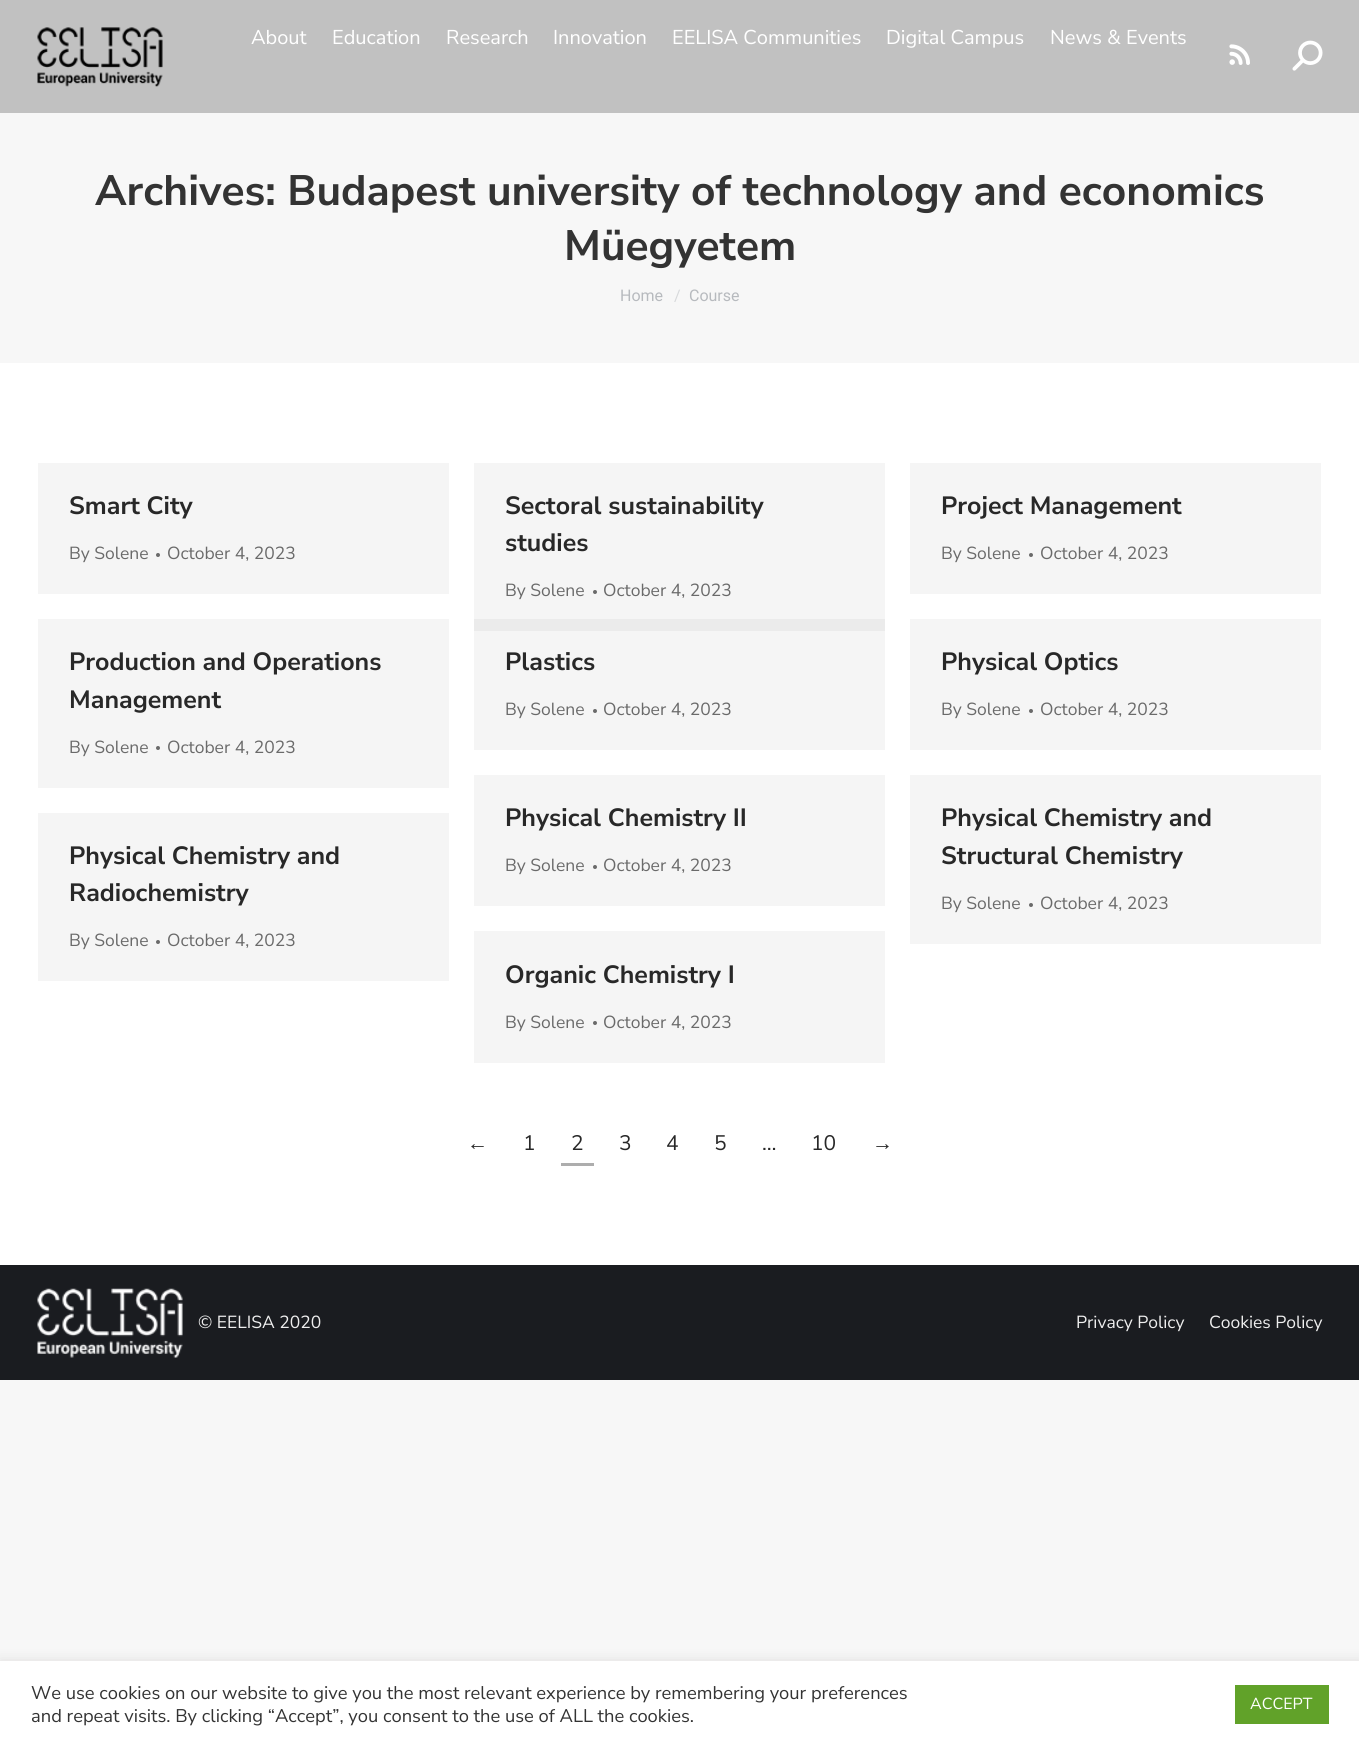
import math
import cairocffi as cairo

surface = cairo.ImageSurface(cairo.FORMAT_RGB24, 1359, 1747)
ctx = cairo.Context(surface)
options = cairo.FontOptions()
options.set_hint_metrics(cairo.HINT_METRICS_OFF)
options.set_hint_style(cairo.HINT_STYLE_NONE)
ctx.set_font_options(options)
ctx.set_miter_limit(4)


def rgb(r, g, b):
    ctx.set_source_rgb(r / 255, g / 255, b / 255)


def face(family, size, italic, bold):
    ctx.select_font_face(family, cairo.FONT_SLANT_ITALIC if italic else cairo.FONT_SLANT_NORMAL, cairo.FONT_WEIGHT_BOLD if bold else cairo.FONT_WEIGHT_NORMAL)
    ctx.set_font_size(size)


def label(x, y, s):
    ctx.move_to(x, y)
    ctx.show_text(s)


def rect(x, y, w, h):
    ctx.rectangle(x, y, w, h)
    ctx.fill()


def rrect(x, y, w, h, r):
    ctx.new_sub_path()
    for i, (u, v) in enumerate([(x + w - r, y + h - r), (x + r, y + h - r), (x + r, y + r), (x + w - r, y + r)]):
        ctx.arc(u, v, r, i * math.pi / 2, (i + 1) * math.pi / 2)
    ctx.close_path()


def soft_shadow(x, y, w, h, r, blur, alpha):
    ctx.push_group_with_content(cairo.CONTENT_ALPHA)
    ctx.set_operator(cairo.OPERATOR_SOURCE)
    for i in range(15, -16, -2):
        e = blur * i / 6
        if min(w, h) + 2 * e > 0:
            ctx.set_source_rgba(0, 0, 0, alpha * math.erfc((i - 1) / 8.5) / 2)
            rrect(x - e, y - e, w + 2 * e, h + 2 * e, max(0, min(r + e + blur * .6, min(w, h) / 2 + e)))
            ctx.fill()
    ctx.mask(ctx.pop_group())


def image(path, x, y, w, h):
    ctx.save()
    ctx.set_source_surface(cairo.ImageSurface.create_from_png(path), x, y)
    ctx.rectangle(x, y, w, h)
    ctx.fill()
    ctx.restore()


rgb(247, 247, 247)
ctx.paint()
rgb(255, 255, 255)
rect(0, 363, 1359, 902)
rgb(245, 245, 245)
rect(474, 631, 411, 119)
rgb(193, 193, 193)
rect(0, 0, 1359, 113)
image('image0.png', 37, 27, 126, 60)
face('Nunito Sans', 20, 0, 0)
rgb(255, 255, 255)
label(251, 44, 'About')
label(332, 44, 'Education')
label(446, 44, 'Research')
label(553, 44, 'Innovation')
label(672, 44, 'EELISA Communities')
label(886, 44, 'Digital Campus')
label(1050, 44, 'News & Events')
image('image1.png', 1229, 44, 21, 21)
image('image2.png', 1292, 40, 31, 31)
face('Nunito Sans', 42.5, 0, 1)
rgb(51, 51, 51)
label(95, 205, 'Archives: Budapest university of technology and economics')
label(564, 260, 'Müegyetem')
face('Roboto', 16, 0, 0)
rgb(183, 186, 190)
label(620, 301, 'Home')
rgb(215, 217, 219)
label(674, 301, '/')
rgb(183, 186, 190)
label(689, 301, 'Course')
rgb(245, 245, 245)
rect(38, 463, 411, 131)
face('Nunito Sans', 25, 0, 1)
rgb(40, 40, 40)
label(69, 514, 'Smart City')
face('Nunito Sans', 17.5, 0, 0)
rgb(106, 106, 106)
label(69, 559, 'By Solene')
ctx.new_path()
ctx.arc(158, 555, 2, 0, 2 * math.pi)
ctx.fill()
label(167, 559, 'October 4, 2023')
rgb(245, 245, 245)
rect(474, 463, 411, 156)
rgb(235, 235, 235)
rect(474, 619, 411, 12)
face('Nunito Sans', 25, 0, 1)
rgb(40, 40, 40)
label(505, 514, 'Sectoral sustainability')
label(505, 551, 'studies')
face('Nunito Sans', 17.5, 0, 0)
rgb(106, 106, 106)
label(505, 596, 'By Solene')
ctx.new_path()
ctx.arc(595, 592, 2, 0, 2 * math.pi)
ctx.fill()
label(603, 596, 'October 4, 2023')
rgb(245, 245, 245)
rect(910, 463, 411, 131)
face('Nunito Sans', 25, 0, 1)
rgb(40, 40, 40)
label(941, 514, 'Project Management')
face('Nunito Sans', 17.5, 0, 0)
rgb(106, 106, 106)
label(941, 559, 'By Solene')
ctx.new_path()
ctx.arc(1031, 555, 2, 0, 2 * math.pi)
ctx.fill()
label(1040, 559, 'October 4, 2023')
rgb(245, 245, 245)
rect(38, 619, 411, 169)
face('Nunito Sans', 25, 0, 1)
rgb(40, 40, 40)
label(69, 670, 'Production and Operations')
label(69, 708, 'Management')
face('Nunito Sans', 17.5, 0, 0)
rgb(106, 106, 106)
label(69, 753, 'By Solene')
ctx.new_path()
ctx.arc(158, 748, 2, 0, 2 * math.pi)
ctx.fill()
label(167, 753, 'October 4, 2023')
face('Nunito Sans', 25, 0, 1)
rgb(40, 40, 40)
label(505, 670, 'Plastics')
face('Nunito Sans', 17.5, 0, 0)
rgb(106, 106, 106)
label(505, 715, 'By Solene')
ctx.new_path()
ctx.arc(595, 711, 2, 0, 2 * math.pi)
ctx.fill()
label(603, 715, 'October 4, 2023')
rgb(245, 245, 245)
rect(910, 619, 411, 131)
face('Nunito Sans', 25, 0, 1)
rgb(40, 40, 40)
label(941, 670, 'Physical Optics')
face('Nunito Sans', 17.5, 0, 0)
rgb(106, 106, 106)
label(941, 715, 'By Solene')
ctx.new_path()
ctx.arc(1031, 711, 2, 0, 2 * math.pi)
ctx.fill()
label(1040, 715, 'October 4, 2023')
rgb(245, 245, 245)
rect(38, 813, 411, 168)
face('Nunito Sans', 25, 0, 1)
rgb(40, 40, 40)
label(69, 864, 'Physical Chemistry and')
label(69, 901, 'Radiochemistry')
face('Nunito Sans', 17.5, 0, 0)
rgb(106, 106, 106)
label(69, 946, 'By Solene')
ctx.new_path()
ctx.arc(158, 942, 2, 0, 2 * math.pi)
ctx.fill()
label(167, 946, 'October 4, 2023')
rgb(245, 245, 245)
rect(474, 775, 411, 131)
face('Nunito Sans', 25, 0, 1)
rgb(40, 40, 40)
label(505, 826, 'Physical Chemistry II')
face('Nunito Sans', 17.5, 0, 0)
rgb(106, 106, 106)
label(505, 871, 'By Solene')
ctx.new_path()
ctx.arc(595, 867, 2, 0, 2 * math.pi)
ctx.fill()
label(603, 871, 'October 4, 2023')
rgb(245, 245, 245)
rect(910, 775, 411, 169)
face('Nunito Sans', 25, 0, 1)
rgb(40, 40, 40)
label(941, 826, 'Physical Chemistry and')
label(941, 864, 'Structural Chemistry')
face('Nunito Sans', 17.5, 0, 0)
rgb(106, 106, 106)
label(941, 909, 'By Solene')
ctx.new_path()
ctx.arc(1031, 905, 2, 0, 2 * math.pi)
ctx.fill()
label(1040, 909, 'October 4, 2023')
rgb(245, 245, 245)
rect(474, 931, 411, 132)
face('Nunito Sans', 25, 0, 1)
rgb(40, 40, 40)
label(505, 983, 'Organic Chemistry I')
face('Nunito Sans', 17.5, 0, 0)
rgb(106, 106, 106)
label(505, 1028, 'By Solene')
ctx.new_path()
ctx.arc(595, 1023, 2, 0, 2 * math.pi)
ctx.fill()
label(603, 1028, 'October 4, 2023')
face('Liberation Sans', 21, 0, 0)
rgb(40, 40, 40)
label(467, 1150, '←')
face('Nunito Sans', 21, 0, 0)
label(523, 1150, '1')
label(571, 1150, '2')
rgb(173, 173, 173)
rect(561, 1163, 33, 3)
rgb(40, 40, 40)
label(619, 1150, '3')
label(666, 1150, '4')
label(714, 1150, '5')
label(762, 1150, '…')
label(811, 1150, '10')
face('Liberation Sans', 21, 0, 0)
label(872, 1150, '→')
rgb(26, 28, 32)
rect(0, 1265, 1359, 115)
image('image3.png', 37, 1288, 146, 70)
face('Nunito Sans', 17.5, 0, 0)
rgb(238, 238, 238)
label(198, 1328, '© EELISA 2020')
label(1076, 1328, 'Privacy Policy')
label(1209, 1328, 'Cookies Policy')
rgb(172, 171, 171)
soft_shadow(0, 1660, 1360, 86, 0, 6, 0.3)
rgb(255, 255, 255)
rect(0, 1661, 1359, 86)
face('Nunito Sans', 18.35, 0, 0)
rgb(51, 51, 51)
label(31, 1699, 'We use cookies on our website to give you the most relevant experience by remembering your preferences')
label(31, 1722, 'and repeat visits. By clicking “Accept”, you consent to the use of ALL the cookies.')
rgb(97, 162, 41)
rect(1235, 1685, 94, 39)
face('Nunito Sans', 16, 0, 0)
rgb(255, 255, 255)
label(1250, 1709, 'ACCEPT')
surface.write_to_png('render.png')
